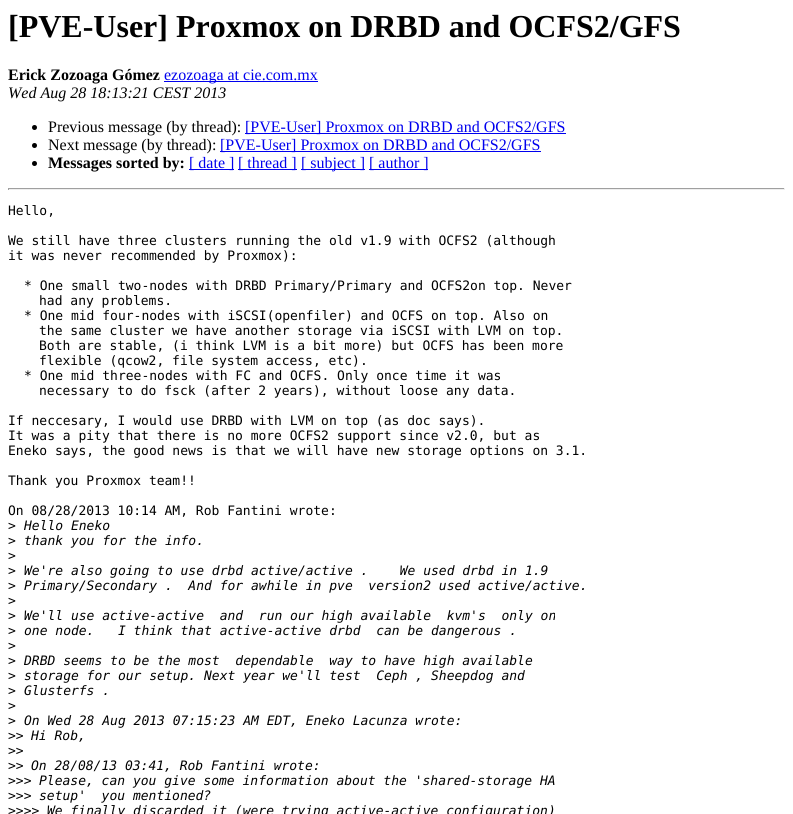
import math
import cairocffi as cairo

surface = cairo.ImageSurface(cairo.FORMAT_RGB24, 793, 814)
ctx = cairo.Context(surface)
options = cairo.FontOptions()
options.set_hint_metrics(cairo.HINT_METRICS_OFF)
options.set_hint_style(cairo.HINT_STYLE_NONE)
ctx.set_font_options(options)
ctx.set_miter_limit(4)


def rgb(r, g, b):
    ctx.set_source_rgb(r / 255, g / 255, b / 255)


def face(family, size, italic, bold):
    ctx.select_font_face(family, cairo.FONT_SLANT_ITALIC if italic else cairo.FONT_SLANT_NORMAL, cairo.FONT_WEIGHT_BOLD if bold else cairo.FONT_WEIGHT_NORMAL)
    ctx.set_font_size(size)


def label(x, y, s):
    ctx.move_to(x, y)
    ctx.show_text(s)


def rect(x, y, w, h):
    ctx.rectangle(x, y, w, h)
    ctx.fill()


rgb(255, 255, 255)
ctx.paint()
face('Liberation Serif', 32, 0, 1)
rgb(0, 0, 0)
label(8, 37, '[PVE-User] Proxmox on DRBD and OCFS2/GFS')
face('Liberation Serif', 16, 0, 1)
label(8, 80, 'Erick Zozoaga Gómez')
rgb(0, 0, 238)
rect(164, 81, 154, 1)
face('Liberation Serif', 16, 0, 0)
label(164, 80, 'ezozoaga at cie.com.mx')
face('Liberation Serif', 16, 1, 0)
rgb(0, 0, 0)
label(8, 98, 'Wed Aug 28 18:13:21 CEST 2013')
ctx.new_path()
ctx.arc(34.5, 127.5, 2.5, 0, 2 * math.pi)
ctx.fill()
face('Liberation Serif', 16, 0, 0)
label(48, 132, 'Previous message (by thread):')
rgb(0, 0, 238)
rect(245, 133, 321, 1)
label(245, 132, '[PVE-User] Proxmox on DRBD and OCFS2/GFS')
rgb(0, 0, 0)
ctx.new_path()
ctx.arc(34.5, 145.5, 2.5, 0, 2 * math.pi)
ctx.fill()
label(48, 150, 'Next message (by thread):')
rgb(0, 0, 238)
rect(220, 151, 321, 1)
label(220, 150, '[PVE-User] Proxmox on DRBD and OCFS2/GFS')
rgb(0, 0, 0)
ctx.new_path()
ctx.arc(34.5, 163.5, 2.5, 0, 2 * math.pi)
ctx.fill()
face('Liberation Serif', 16, 0, 1)
label(48, 168, 'Messages sorted by:')
rgb(0, 0, 238)
rect(189, 169, 45, 1)
face('Liberation Serif', 16, 0, 0)
label(189, 168, '[ date ]')
rect(238, 169, 59, 1)
label(238, 168, '[ thread ]')
rect(301, 169, 64, 1)
label(301, 168, '[ subject ]')
rect(369, 169, 59, 1)
label(369, 168, '[ author ]')
rgb(159, 159, 159)
rect(8, 188, 777, 1)
rgb(238, 238, 238)
rect(784, 188, 1, 2)
rect(8, 189, 777, 1)
rgb(159, 159, 159)
rect(8, 188, 1, 2)
face('DejaVu Sans Mono', 13, 0, 0)
rgb(0, 0, 0)
label(8, 215, 'Hello,')
label(8, 245, 'We still have three clusters running the old v1.9 with OCFS2 (although')
label(8, 260, 'it was never recommended by Proxmox):')
label(24, 290, '* One small two-nodes with DRBD Primary/Primary and OCFS2on top. Never')
label(39, 305, 'had any problems.')
label(24, 320, '* One mid four-nodes with iSCSI(openfiler) and OCFS on top. Also on')
label(39, 335, 'the same cluster we have another storage via iSCSI with LVM on top.')
label(39, 350, 'Both are stable, (i think LVM is a bit more) but OCFS has been more')
label(39, 365, 'flexible (qcow2, file system access, etc).')
label(24, 380, '* One mid three-nodes with FC and OCFS. Only once time it was')
label(39, 395, 'necessary to do fsck (after 2 years), without loose any data.')
label(8, 425, 'If neccesary, I would use DRBD with LVM on top (as doc says).')
label(8, 440, 'It was a pity that there is no more OCFS2 support since v2.0, but as')
label(8, 455, 'Eneko says, the good news is that we will have new storage options on 3.1.')
label(8, 485, 'Thank you Proxmox team!!')
label(8, 515, 'On 08/28/2013 10:14 AM, Rob Fantini wrote:')
label(8, 530, '>')
face('DejaVu Sans Mono', 13, 1, 0)
label(24, 530, 'Hello Eneko')
face('DejaVu Sans Mono', 13, 0, 0)
label(8, 545, '>')
face('DejaVu Sans Mono', 13, 1, 0)
label(24, 545, 'thank you for the info.')
face('DejaVu Sans Mono', 13, 0, 0)
label(8, 560, '>')
label(8, 575, '>')
face('DejaVu Sans Mono', 13, 1, 0)
label(24, 575, 'We\'re also going to use drbd active/active .    We used drbd in 1.9')
face('DejaVu Sans Mono', 13, 0, 0)
label(8, 590, '>')
face('DejaVu Sans Mono', 13, 1, 0)
label(24, 590, 'Primary/Secondary .  And for awhile in pve  version2 used active/active.')
face('DejaVu Sans Mono', 13, 0, 0)
label(8, 605, '>')
label(8, 620, '>')
face('DejaVu Sans Mono', 13, 1, 0)
label(24, 620, 'We\'ll use active-active  and  run our high available  kvm\'s  only on')
face('DejaVu Sans Mono', 13, 0, 0)
label(8, 635, '>')
face('DejaVu Sans Mono', 13, 1, 0)
label(24, 635, 'one node.   I think that active-active drbd  can be dangerous .')
face('DejaVu Sans Mono', 13, 0, 0)
label(8, 650, '>')
label(8, 665, '>')
face('DejaVu Sans Mono', 13, 1, 0)
label(24, 665, 'DRBD seems to be the most  dependable  way to have high available')
face('DejaVu Sans Mono', 13, 0, 0)
label(8, 680, '>')
face('DejaVu Sans Mono', 13, 1, 0)
label(24, 680, 'storage for our setup. Next year we\'ll test  Ceph , Sheepdog and')
face('DejaVu Sans Mono', 13, 0, 0)
label(8, 695, '>')
face('DejaVu Sans Mono', 13, 1, 0)
label(24, 695, 'Glusterfs .')
face('DejaVu Sans Mono', 13, 0, 0)
label(8, 710, '>')
label(8, 725, '>')
face('DejaVu Sans Mono', 13, 1, 0)
label(24, 725, 'On Wed 28 Aug 2013 07:15:23 AM EDT, Eneko Lacunza wrote:')
face('DejaVu Sans Mono', 13, 0, 0)
label(8, 740, '>>')
face('DejaVu Sans Mono', 13, 1, 0)
label(31, 740, 'Hi Rob,')
face('DejaVu Sans Mono', 13, 0, 0)
label(8, 755, '>>')
label(8, 770, '>>')
face('DejaVu Sans Mono', 13, 1, 0)
label(31, 770, 'On 28/08/13 03:41, Rob Fantini wrote:')
face('DejaVu Sans Mono', 13, 0, 0)
label(8, 785, '>>>')
face('DejaVu Sans Mono', 13, 1, 0)
label(39, 785, 'Please, can you give some information about the \'shared-storage HA')
face('DejaVu Sans Mono', 13, 0, 0)
label(8, 800, '>>>')
face('DejaVu Sans Mono', 13, 1, 0)
label(39, 800, 'setup\'  you mentioned?')
face('DejaVu Sans Mono', 13, 0, 0)
label(8, 815, '>>>>')
face('DejaVu Sans Mono', 13, 1, 0)
label(47, 815, 'We finally discarded it (were trying active-active configuration)')
surface.write_to_png('render.png')
